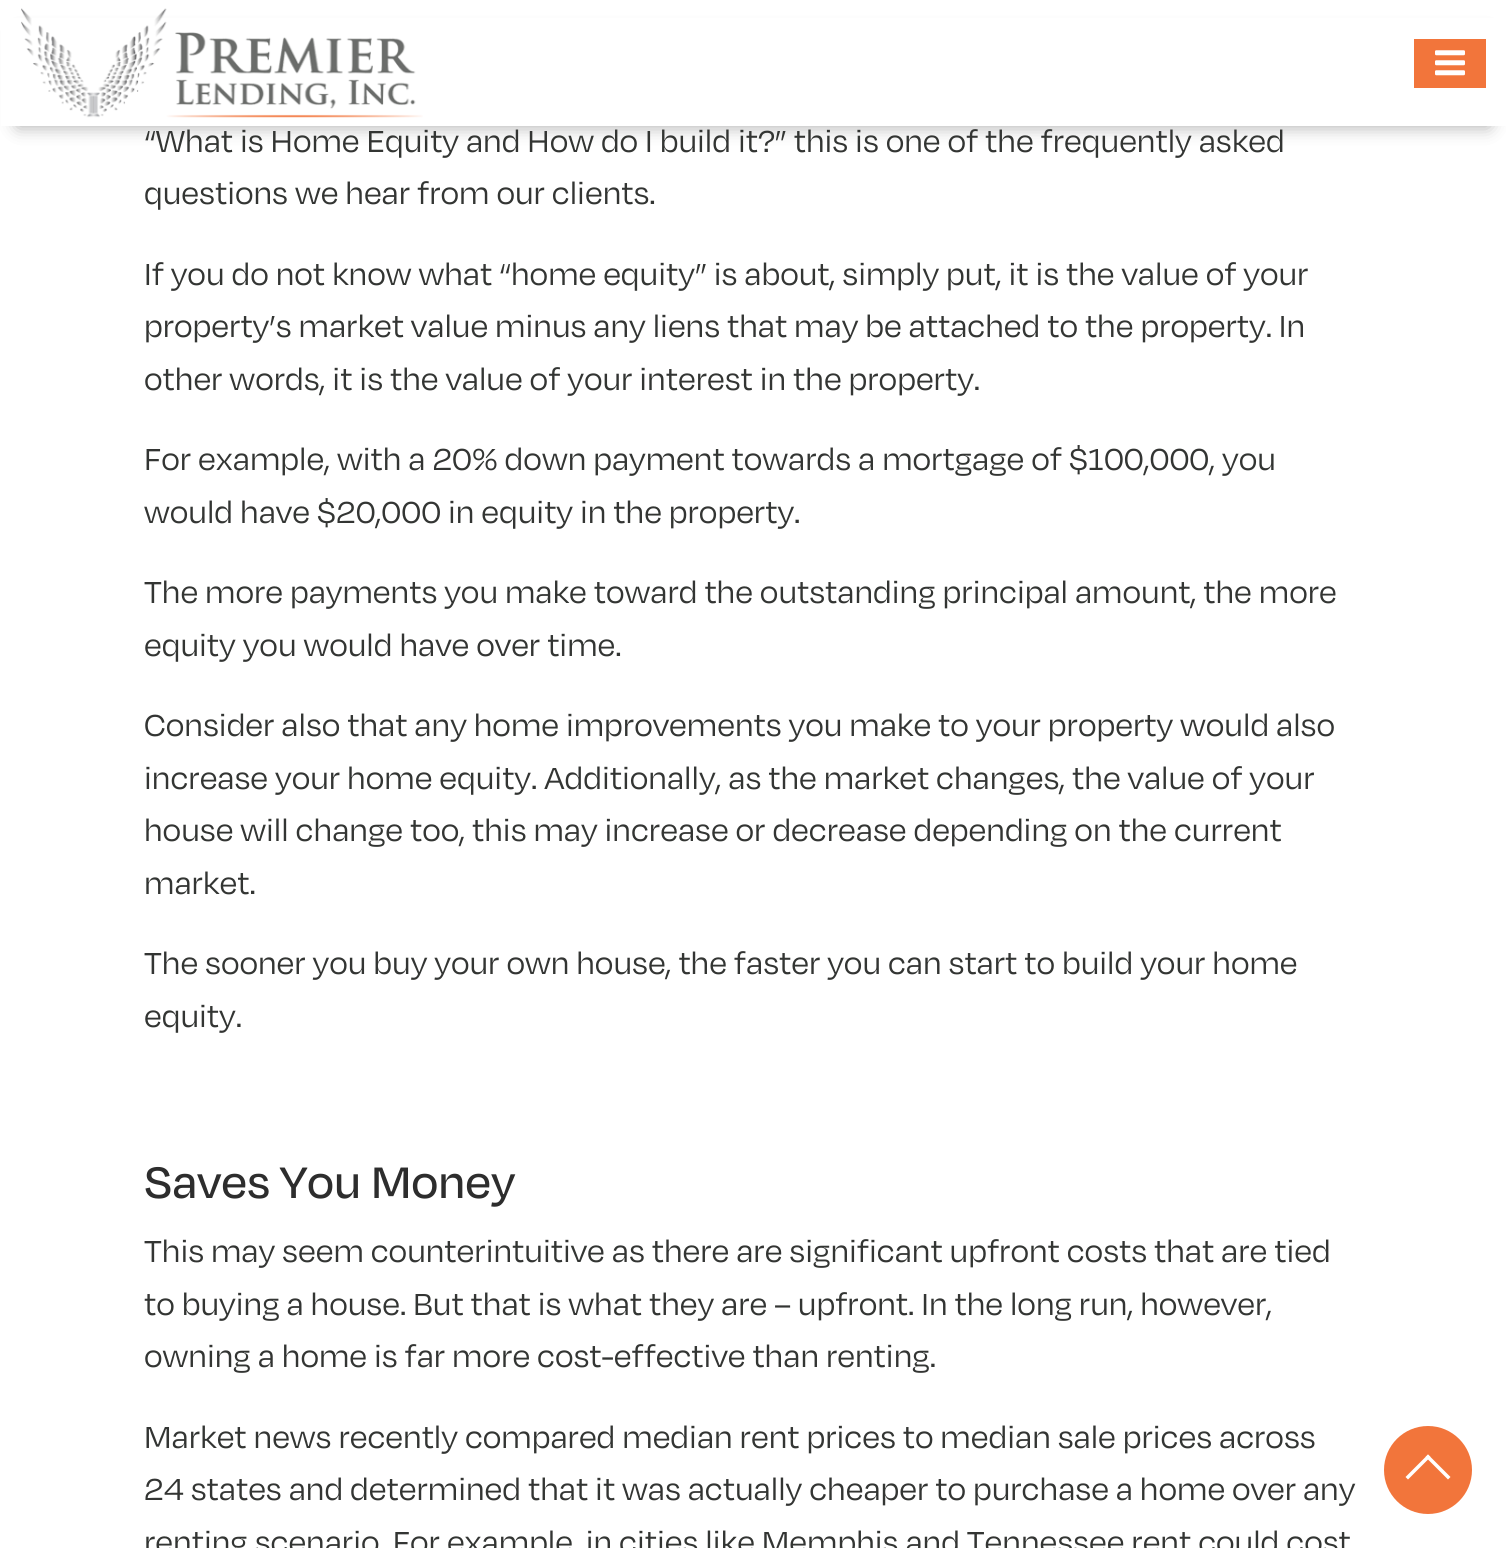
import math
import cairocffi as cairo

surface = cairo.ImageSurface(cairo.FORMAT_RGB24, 1506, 1548)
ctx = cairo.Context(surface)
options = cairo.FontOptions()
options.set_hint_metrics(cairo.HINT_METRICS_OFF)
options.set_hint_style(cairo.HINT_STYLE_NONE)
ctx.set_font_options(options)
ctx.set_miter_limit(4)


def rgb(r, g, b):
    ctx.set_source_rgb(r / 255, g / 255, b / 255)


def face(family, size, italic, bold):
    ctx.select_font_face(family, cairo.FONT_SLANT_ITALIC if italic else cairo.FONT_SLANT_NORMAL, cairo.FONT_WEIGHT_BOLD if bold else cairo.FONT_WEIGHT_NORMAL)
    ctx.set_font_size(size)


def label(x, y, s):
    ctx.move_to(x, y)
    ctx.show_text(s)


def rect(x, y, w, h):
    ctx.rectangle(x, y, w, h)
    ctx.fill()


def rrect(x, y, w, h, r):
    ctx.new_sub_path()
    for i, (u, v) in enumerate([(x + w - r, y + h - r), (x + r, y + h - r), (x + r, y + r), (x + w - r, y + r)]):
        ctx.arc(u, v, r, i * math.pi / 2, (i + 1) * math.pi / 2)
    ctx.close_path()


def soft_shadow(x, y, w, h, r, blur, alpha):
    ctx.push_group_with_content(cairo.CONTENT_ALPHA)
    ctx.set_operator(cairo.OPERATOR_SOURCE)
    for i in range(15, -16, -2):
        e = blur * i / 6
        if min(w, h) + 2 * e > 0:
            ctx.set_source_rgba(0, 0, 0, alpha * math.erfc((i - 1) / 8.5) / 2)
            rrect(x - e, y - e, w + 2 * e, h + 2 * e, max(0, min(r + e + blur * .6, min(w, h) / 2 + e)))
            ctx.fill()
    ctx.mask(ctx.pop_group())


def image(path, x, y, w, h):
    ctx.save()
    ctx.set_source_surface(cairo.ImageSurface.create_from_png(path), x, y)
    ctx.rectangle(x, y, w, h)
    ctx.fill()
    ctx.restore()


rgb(255, 255, 255)
ctx.paint()
rgb(0, 0, 0)
soft_shadow(18, 35, 1471, 91, 0, 9, 0.35)
rgb(255, 255, 255)
rect(1, 18, 1505, 108)
image('image0.png', 21, 8, 402, 110)
rgb(242, 117, 59)
rect(1414, 39, 72, 49)
image('image1.png', 1435, 50, 30, 26)
face('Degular', 35, 0, 0)
rgb(51, 53, 51)
label(144, 152, '“What is Home Equity and How do I build it?” this is one of the frequently asked')
label(144, 204, 'questions we hear from our clients.')
label(144, 285, 'If you do not know what “home equity” is about, simply put, it is the value of your')
label(144, 337, 'property’s market value minus any liens that may be attached to the property. In')
label(144, 390, 'other words, it is the value of your interest in the property.')
label(144, 470, 'For example, with a 20% down payment towards a mortgage of $100,000, you')
label(144, 523, 'would have $20,000 in equity in the property.')
label(144, 603, 'The more payments you make toward the outstanding principal amount, the more')
label(144, 656, 'equity you would have over time.')
label(144, 736, 'Consider also that any home improvements you make to your property would also')
label(144, 789, 'increase your home equity. Additionally, as the market changes, the value of your')
label(144, 841, 'house will change too, this may increase or decrease depending on the current')
label(144, 894, 'market.')
label(144, 974, 'The sooner you buy your own house, the faster you can start to build your home')
label(144, 1027, 'equity.')
face('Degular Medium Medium', 50.75, 0, 0)
rgb(45, 45, 45)
label(144, 1198, 'Saves You Money')
face('Degular', 35, 0, 0)
rgb(51, 53, 51)
label(144, 1262, 'This may seem counterintuitive as there are significant upfront costs that are tied')
label(144, 1315, 'to buying a house. But that is what they are – upfront. In the long run, however,')
label(144, 1367, 'owning a home is far more cost-effective than renting.')
label(144, 1448, 'Market news recently compared median rent prices to median sale prices across')
label(144, 1500, '24 states and determined that it was actually cheaper to purchase a home over any')
label(144, 1553, 'renting scenario. For example, in cities like Memphis and Tennessee rent could cost')
rgb(242, 117, 59)
ctx.new_path()
ctx.arc(1428, 1470, 44, 0, 2 * math.pi)
ctx.fill()
rgb(255, 255, 255)
ctx.new_path()
ctx.move_to(1430.5, 1457)
ctx.line_to(1408, 1479.5)
ctx.line_to(1405.5, 1477)
ctx.line_to(1428, 1454.5)
ctx.close_path()
ctx.fill()
ctx.new_path()
ctx.move_to(1450.5, 1477)
ctx.line_to(1448, 1479.5)
ctx.line_to(1425.5, 1457)
ctx.line_to(1428, 1454.5)
ctx.close_path()
ctx.fill()
surface.write_to_png('render.png')
